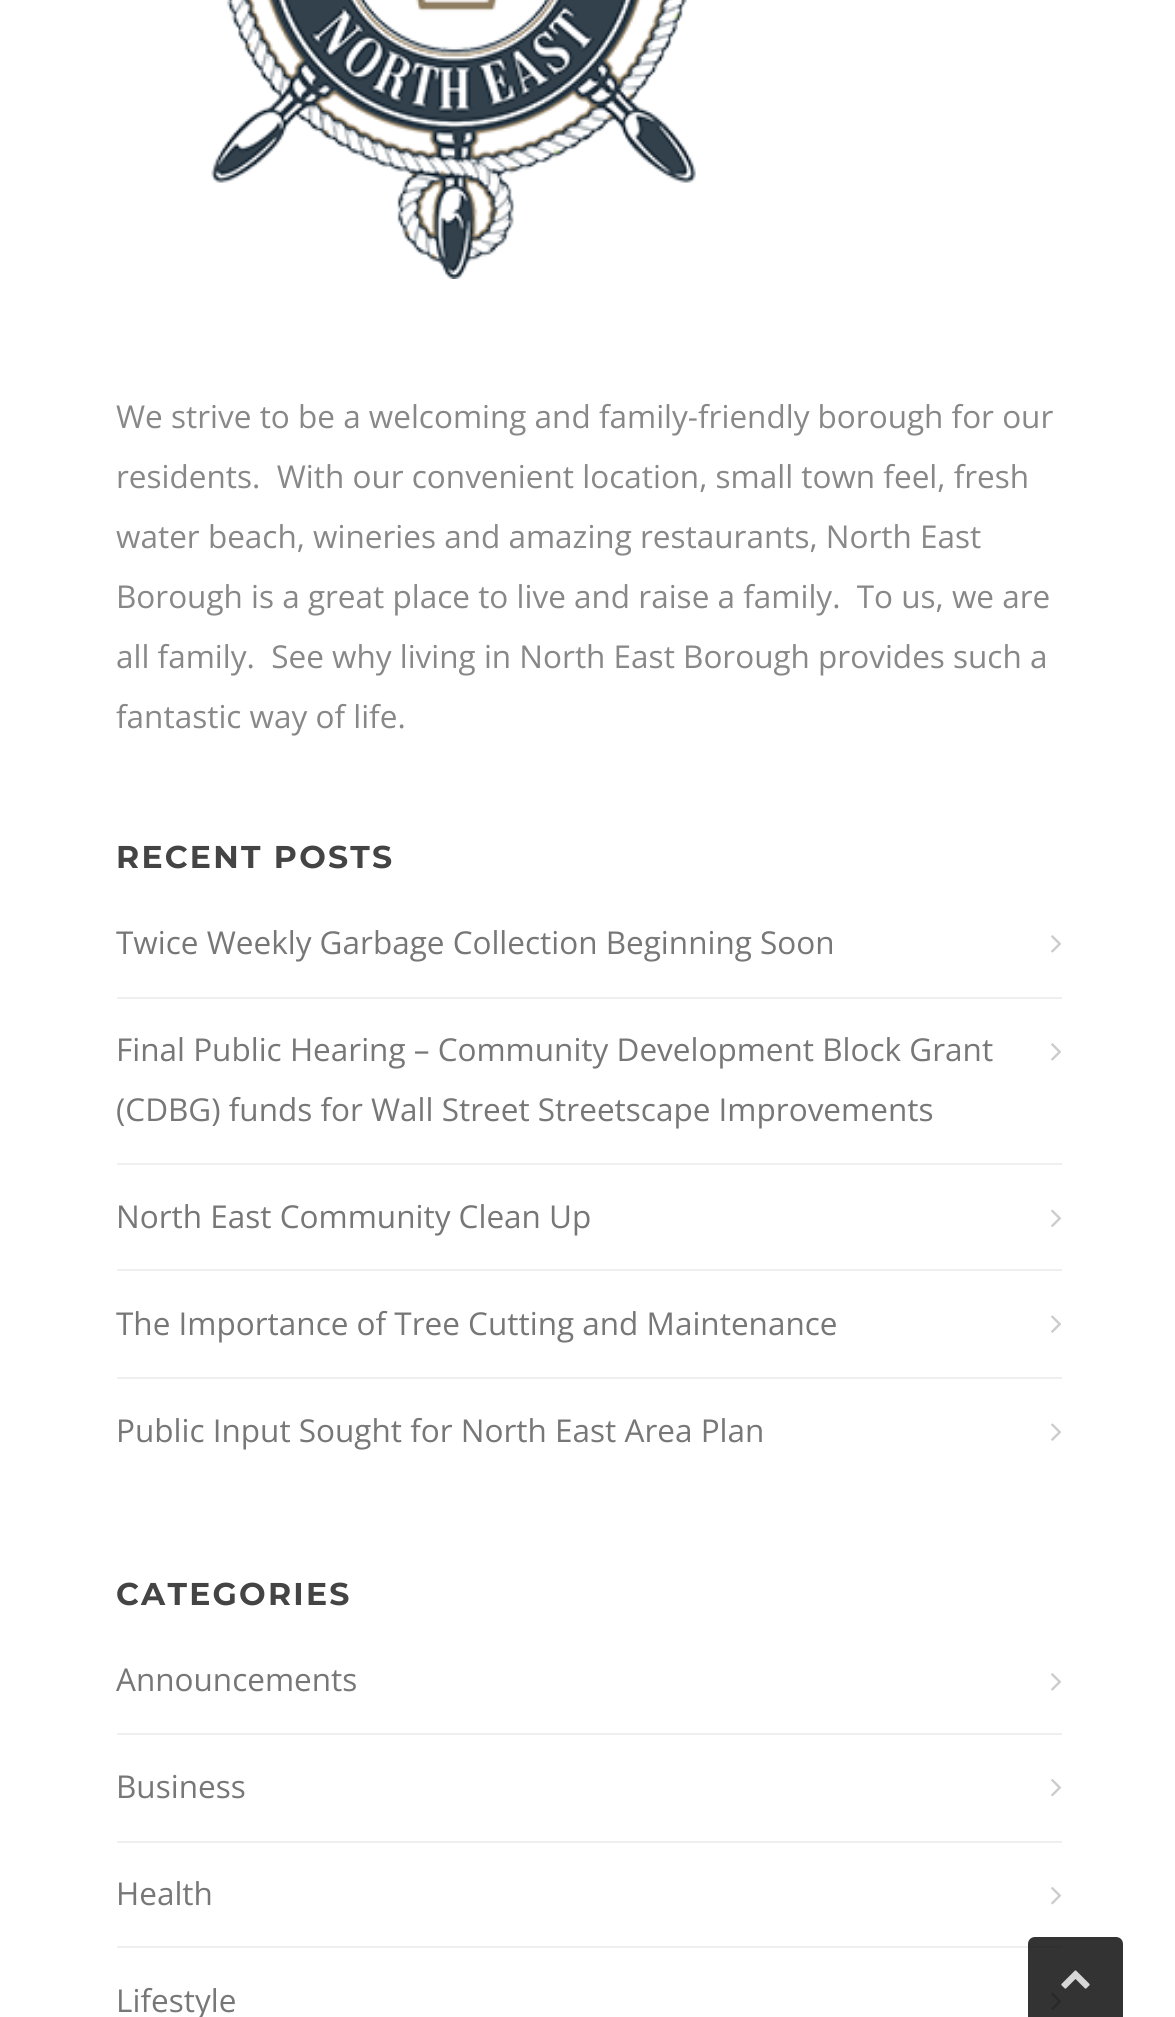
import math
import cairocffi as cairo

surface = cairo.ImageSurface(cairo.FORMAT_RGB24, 1175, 2017)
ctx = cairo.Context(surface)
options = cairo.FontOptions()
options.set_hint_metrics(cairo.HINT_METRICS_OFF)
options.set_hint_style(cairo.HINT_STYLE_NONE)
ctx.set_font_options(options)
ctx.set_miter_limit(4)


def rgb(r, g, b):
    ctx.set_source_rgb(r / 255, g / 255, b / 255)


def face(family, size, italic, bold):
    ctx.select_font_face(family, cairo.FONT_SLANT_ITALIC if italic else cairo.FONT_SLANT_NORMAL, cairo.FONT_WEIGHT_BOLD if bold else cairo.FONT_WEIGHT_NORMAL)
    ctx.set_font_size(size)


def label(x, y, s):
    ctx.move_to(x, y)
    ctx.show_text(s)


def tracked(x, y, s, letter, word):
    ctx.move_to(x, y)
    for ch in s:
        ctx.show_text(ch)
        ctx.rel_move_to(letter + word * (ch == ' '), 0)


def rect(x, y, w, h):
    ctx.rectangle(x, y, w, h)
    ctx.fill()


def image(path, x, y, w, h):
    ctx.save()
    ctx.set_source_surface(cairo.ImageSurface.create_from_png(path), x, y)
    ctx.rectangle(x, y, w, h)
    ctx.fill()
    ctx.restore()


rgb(255, 255, 255)
ctx.paint()
image('image0.png', 211, 0, 485, 279)
face('Open Sans', 31.5, 0, 0)
rgb(136, 136, 136)
label(116, 428, 'We strive to be a welcoming and family-friendly borough for our')
label(116, 488, 'residents.  With our convenient location, small town feel, fresh')
label(116, 548, 'water beach, wineries and amazing restaurants, North East')
label(116, 608, 'Borough is a great place to live and raise a family.  To us, we are')
label(116, 668, 'all family.  See why living in North East Borough provides such a')
label(116, 728, 'fantastic way of life.')
face('Montserrat', 31.5, 0, 1)
rgb(68, 68, 68)
tracked(116, 868, 'RECENT POSTS', 2.25, 0)
rgb(239, 239, 239)
rect(117, 997, 945, 2)
face('Open Sans', 31.5, 0, 0)
rgb(119, 119, 119)
label(116, 954, 'Twice Weekly Garbage Collection Beginning Soon')
image('image1.png', 1051, 935, 10, 18)
rgb(239, 239, 239)
rect(117, 1163, 945, 2)
rgb(119, 119, 119)
label(116, 1061, 'Final Public Hearing – Community Development Block Grant')
label(116, 1121, '(CDBG) funds for Wall Street Streetscape Improvements')
image('image1.png', 1051, 1043, 10, 18)
rgb(239, 239, 239)
rect(117, 1269, 945, 2)
rgb(119, 119, 119)
label(116, 1228, 'North East Community Clean Up')
image('image2.png', 1051, 1209, 11, 18)
rgb(239, 239, 239)
rect(117, 1377, 945, 2)
rgb(119, 119, 119)
label(116, 1335, 'The Importance of Tree Cutting and Maintenance')
image('image3.png', 1051, 1315, 10, 18)
label(116, 1442, 'Public Input Sought for North East Area Plan')
image('image3.png', 1051, 1423, 10, 18)
face('Montserrat', 31.5, 0, 1)
rgb(68, 68, 68)
tracked(116, 1605, 'CATEGORIES', 2.25, 0)
rgb(239, 239, 239)
rect(117, 1733, 945, 2)
face('Open Sans', 31.5, 0, 0)
rgb(119, 119, 119)
label(116, 1691, 'Announcements')
image('image1.png', 1051, 1673, 10, 18)
rgb(239, 239, 239)
rect(117, 1841, 945, 2)
rgb(119, 119, 119)
label(116, 1798, 'Business')
image('image4.png', 1051, 1779, 11, 18)
rgb(239, 239, 239)
rect(117, 1946, 945, 2)
rgb(119, 119, 119)
label(116, 1905, 'Health')
image('image4.png', 1051, 1887, 11, 18)
label(116, 2012, 'Lifestyle')
image('image2.png', 1051, 1992, 11, 18)
ctx.set_source_rgba(0, 0, 0, 0.8)
ctx.new_path()
ctx.move_to(1035, 1937)
ctx.line_to(1116, 1937)
ctx.curve_to(1120, 1937, 1123, 1940, 1123, 1944)
ctx.line_to(1123, 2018)
ctx.line_to(1028, 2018)
ctx.line_to(1028, 1944)
ctx.curve_to(1028, 1940, 1031, 1937, 1035, 1937)
ctx.close_path()
ctx.fill()
image('image5.png', 1061, 1970, 29, 19)
surface.write_to_png('render.png')
